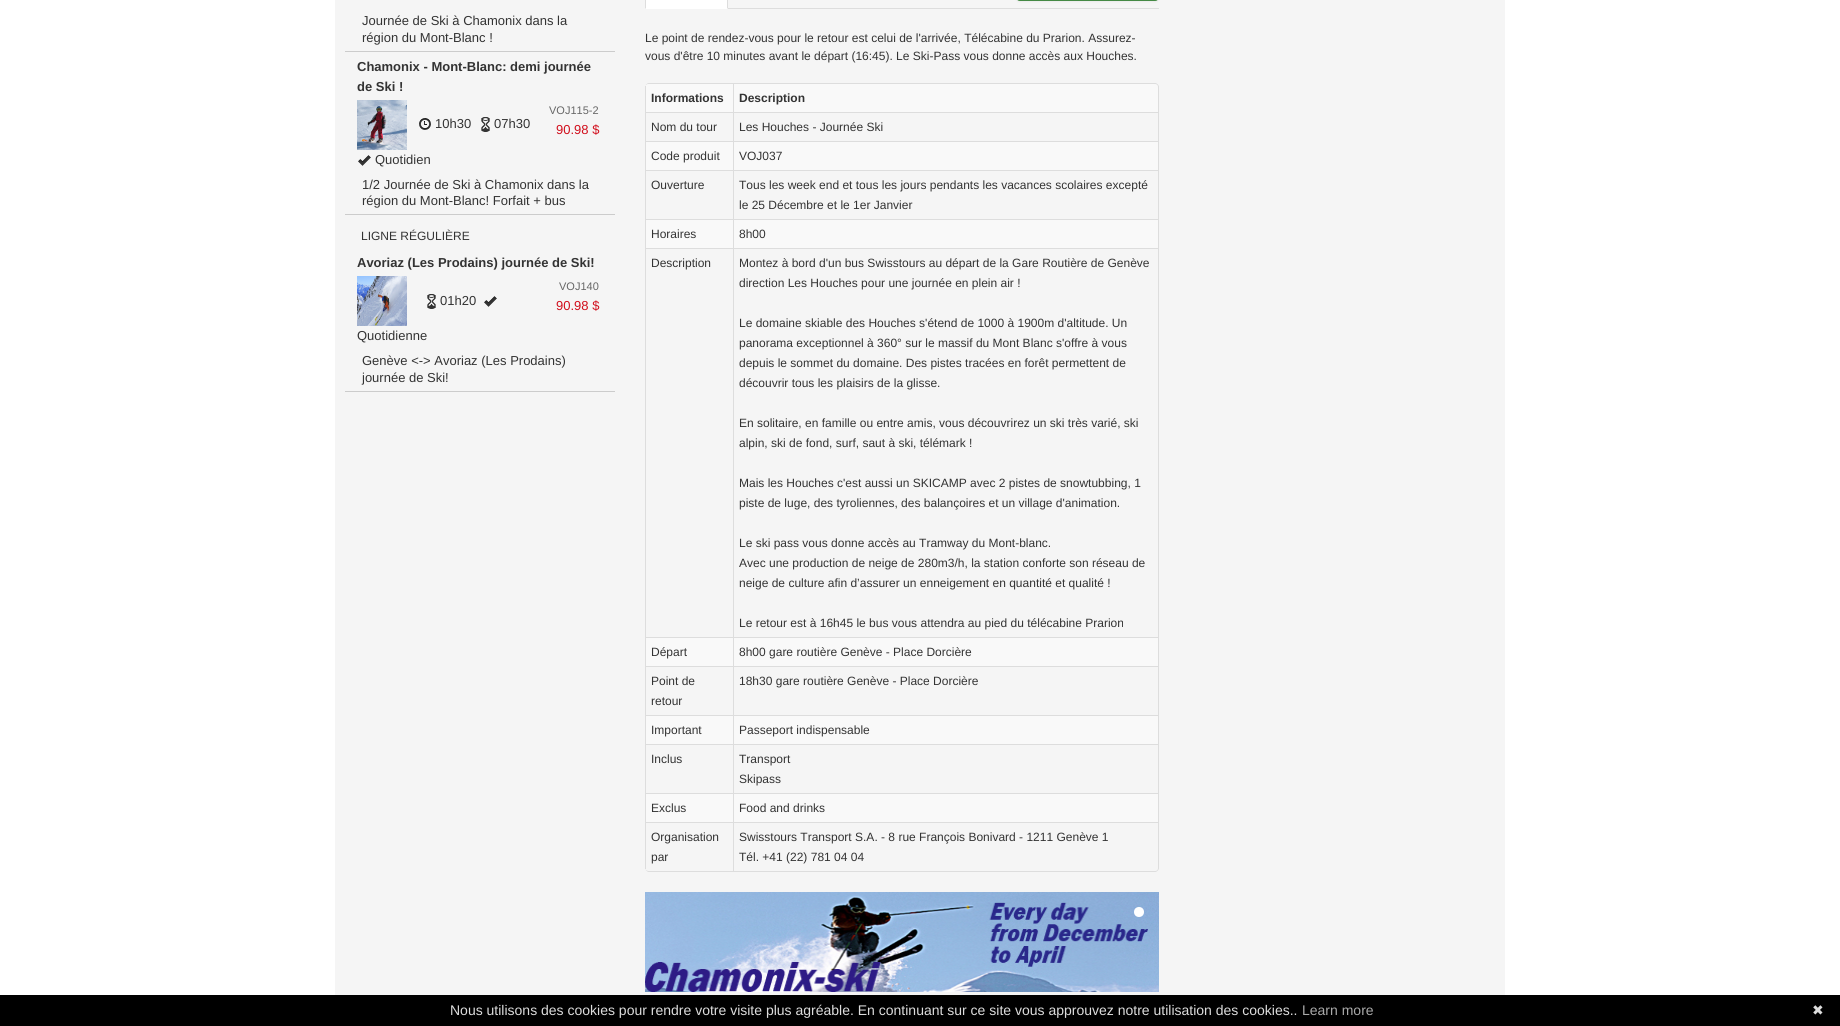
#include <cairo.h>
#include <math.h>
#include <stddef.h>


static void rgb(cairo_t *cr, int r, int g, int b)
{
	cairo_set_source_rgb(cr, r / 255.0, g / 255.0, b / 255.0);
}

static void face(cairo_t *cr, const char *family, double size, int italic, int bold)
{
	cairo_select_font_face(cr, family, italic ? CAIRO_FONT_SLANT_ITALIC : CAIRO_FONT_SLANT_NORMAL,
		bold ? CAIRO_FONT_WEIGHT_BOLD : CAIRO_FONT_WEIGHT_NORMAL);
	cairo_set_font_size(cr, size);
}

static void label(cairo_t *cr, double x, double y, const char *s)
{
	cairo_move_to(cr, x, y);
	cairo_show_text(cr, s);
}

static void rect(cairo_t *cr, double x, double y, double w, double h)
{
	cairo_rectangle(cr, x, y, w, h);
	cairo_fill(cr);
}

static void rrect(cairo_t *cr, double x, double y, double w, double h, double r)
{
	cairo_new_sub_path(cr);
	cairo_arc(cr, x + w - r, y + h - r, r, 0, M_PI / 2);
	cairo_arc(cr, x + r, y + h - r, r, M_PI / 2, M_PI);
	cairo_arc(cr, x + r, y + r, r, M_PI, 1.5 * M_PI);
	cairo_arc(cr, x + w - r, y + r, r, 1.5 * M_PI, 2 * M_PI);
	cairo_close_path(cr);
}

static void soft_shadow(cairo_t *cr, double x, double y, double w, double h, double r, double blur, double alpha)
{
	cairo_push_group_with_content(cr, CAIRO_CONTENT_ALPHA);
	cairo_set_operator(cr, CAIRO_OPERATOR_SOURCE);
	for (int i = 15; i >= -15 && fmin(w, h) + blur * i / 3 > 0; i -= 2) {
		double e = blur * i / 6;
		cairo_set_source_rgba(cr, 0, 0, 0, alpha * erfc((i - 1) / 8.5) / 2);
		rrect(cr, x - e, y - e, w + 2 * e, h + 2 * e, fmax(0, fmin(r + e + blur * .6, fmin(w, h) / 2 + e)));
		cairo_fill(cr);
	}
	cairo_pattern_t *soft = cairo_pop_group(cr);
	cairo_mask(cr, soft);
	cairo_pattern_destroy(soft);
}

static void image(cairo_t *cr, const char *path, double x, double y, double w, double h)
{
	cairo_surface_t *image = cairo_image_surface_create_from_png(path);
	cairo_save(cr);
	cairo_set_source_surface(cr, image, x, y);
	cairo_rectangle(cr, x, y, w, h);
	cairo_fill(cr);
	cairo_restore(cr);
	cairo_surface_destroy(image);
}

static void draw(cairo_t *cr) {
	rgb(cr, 255, 255, 255);
	cairo_paint(cr);
	rgb(cr, 245, 245, 245);
	rect(cr, 335, 0, 1170, 995);
	rgb(cr, 204, 204, 204);
	rect(cr, 345, 51, 270, 1);
	face(cr, "Liberation Sans", 13, 0, 0);
	rgb(cr, 51, 51, 51);
	label(cr, 362, 25, "Journée de Ski à Chamonix dans la");
	label(cr, 362, 42, "région du Mont-Blanc !");
	rgb(cr, 204, 204, 204);
	rect(cr, 345, 214, 270, 1);
	face(cr, "Liberation Sans", 13, 0, 1);
	rgb(cr, 51, 51, 51);
	label(cr, 357, 71, "Chamonix - Mont-Blanc: demi journée");
	label(cr, 357, 91, "de Ski !");
	image(cr, "image0.png", 357, 100, 50, 50);
	face(cr, "Liberation Sans", 11, 0, 0);
	rgb(cr, 102, 102, 102);
	label(cr, 549, 114, "VOJ115-2");
	face(cr, "Liberation Sans", 13, 0, 0);
	rgb(cr, 209, 14, 28);
	label(cr, 556, 134, "90.98 $");
	image(cr, "image1.png", 419, 118, 12, 12);
	rgb(cr, 51, 51, 51);
	label(cr, 435, 128, "10h30");
	image(cr, "image2.png", 481, 117, 9, 15);
	label(cr, 494, 128, "07h30");
	image(cr, "image3.png", 358, 155, 13, 11);
	label(cr, 375, 164, "Quotidien");
	label(cr, 362, 189, "1/2 Journée de Ski à Chamonix dans la");
	label(cr, 362, 205, "région du Mont-Blanc! Forfait + bus");
	face(cr, "Liberation Sans", 12, 0, 0);
	label(cr, 361, 240, "LIGNE RÉGULIÈRE");
	rgb(cr, 204, 204, 204);
	rect(cr, 345, 391, 270, 1);
	face(cr, "Liberation Sans", 13, 0, 1);
	rgb(cr, 51, 51, 51);
	label(cr, 357, 267, "Avoriaz (Les Prodains) journée de Ski!");
	image(cr, "image4.png", 357, 276, 50, 50);
	face(cr, "Liberation Sans", 11, 0, 0);
	rgb(cr, 102, 102, 102);
	label(cr, 559, 290, "VOJ140");
	face(cr, "Liberation Sans", 13, 0, 0);
	rgb(cr, 209, 14, 28);
	label(cr, 556, 310, "90.98 $");
	image(cr, "image2.png", 427, 294, 9, 15);
	rgb(cr, 51, 51, 51);
	label(cr, 440, 305, "01h20");
	image(cr, "image3.png", 484, 296, 13, 11);
	label(cr, 357, 340, "Quotidienne");
	label(cr, 362, 365, "Genève <-> Avoriaz (Les Prodains)");
	label(cr, 362, 382, "journée de Ski!");
	rgb(cr, 0, 0, 0);
	soft_shadow(cr, 1016, -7, 143, 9, 4, 1, 0.05);
	rgb(cr, 91, 183, 91);
	rrect(cr, 1016, -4, 143, 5, 4);
	cairo_fill(cr);
	cairo_new_path(cr);
	cairo_move_to(cr, 1157.5, -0.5);
	cairo_curve_to(cr, 1157, 0, 1156, 0.5, 1155, 0.5);
	cairo_line_to(cr, 1020, 0.5);
	cairo_curve_to(cr, 1019, 0.5, 1018, 0, 1017.5, -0.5);
	cairo_set_source_rgba(cr, 0, 0, 0, 0.25);
	cairo_set_line_width(cr, 1);
	cairo_stroke(cr);
	rgb(cr, 221, 221, 221);
	rect(cr, 728, 8, 431, 1);
	rgb(cr, 255, 255, 255);
	rect(cr, 645, 0, 83, 9);
	rgb(cr, 221, 221, 221);
	cairo_new_path(cr);
	cairo_move_to(cr, 728, 9);
	cairo_line_to(cr, 728, -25);
	cairo_curve_to(cr, 728, -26, 727.5, -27, 727, -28);
	cairo_line_to(cr, 726, -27);
	cairo_curve_to(cr, 727, -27, 727, -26, 727, -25);
	cairo_line_to(cr, 727, 8);
	cairo_close_path(cr);
	cairo_fill(cr);
	cairo_new_path(cr);
	cairo_move_to(cr, 645, 9);
	cairo_line_to(cr, 646, 8);
	cairo_line_to(cr, 646, -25);
	cairo_curve_to(cr, 646, -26, 646, -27, 647, -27);
	cairo_line_to(cr, 646, -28);
	cairo_curve_to(cr, 645.5, -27, 645, -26, 645, -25);
	cairo_close_path(cr);
	cairo_fill(cr);
	face(cr, "Liberation Sans", 12, 0, 0);
	rgb(cr, 51, 51, 51);
	label(cr, 645, 42, "Le point de rendez-vous pour le retour est celui de l'arrivée, Télécabine du Prarion. Assurez-");
	label(cr, 645, 60, "vous d'être 10 minutes avant le départ (16:45). Le Ski-Pass vous donne accès aux Houches.");
	rgb(cr, 221, 221, 221);
	cairo_set_fill_rule(cr, CAIRO_FILL_RULE_EVEN_ODD);
	cairo_new_path(cr);
	cairo_move_to(cr, 649, 83);
	cairo_line_to(cr, 1155, 83);
	cairo_curve_to(cr, 1157, 83, 1159, 85, 1159, 87);
	cairo_line_to(cr, 1159, 868);
	cairo_curve_to(cr, 1159, 870, 1157, 872, 1155, 872);
	cairo_line_to(cr, 649, 872);
	cairo_curve_to(cr, 647, 872, 645, 870, 645, 868);
	cairo_line_to(cr, 645, 87);
	cairo_curve_to(cr, 645, 85, 647, 83, 649, 83);
	cairo_close_path(cr);
	cairo_move_to(cr, 649, 84);
	cairo_line_to(cr, 1155, 84);
	cairo_curve_to(cr, 1157, 84, 1158, 85, 1158, 87);
	cairo_line_to(cr, 1158, 868);
	cairo_curve_to(cr, 1158, 870, 1157, 871, 1155, 871);
	cairo_line_to(cr, 649, 871);
	cairo_curve_to(cr, 647, 871, 645, 870, 645, 868);
	cairo_line_to(cr, 645, 87);
	cairo_curve_to(cr, 645, 85, 647, 84, 649, 84);
	cairo_close_path(cr);
	cairo_fill(cr);
	rgb(cr, 249, 249, 249);
	cairo_new_path(cr);
	cairo_move_to(cr, 649, 84);
	cairo_line_to(cr, 733, 84);
	cairo_line_to(cr, 733, 112);
	cairo_line_to(cr, 645, 112);
	cairo_line_to(cr, 645, 88);
	cairo_curve_to(cr, 645, 86, 647, 84, 649, 84);
	cairo_close_path(cr);
	cairo_fill(cr);
	rgb(cr, 221, 221, 221);
	rect(cr, 645, 86, 1, 26);
	face(cr, "Liberation Sans", 12, 0, 1);
	rgb(cr, 51, 51, 51);
	label(cr, 651, 102, "Informations");
	rgb(cr, 249, 249, 249);
	cairo_new_path(cr);
	cairo_move_to(cr, 733, 84);
	cairo_line_to(cr, 1154, 84);
	cairo_curve_to(cr, 1156, 84, 1158, 86, 1158, 88);
	cairo_line_to(cr, 1158, 112);
	cairo_line_to(cr, 733, 112);
	cairo_close_path(cr);
	cairo_fill(cr);
	rgb(cr, 221, 221, 221);
	rect(cr, 733, 84, 1, 28);
	rgb(cr, 51, 51, 51);
	label(cr, 739, 102, "Description");
	rgb(cr, 221, 221, 221);
	rect(cr, 645, 112, 513, 1);
	rect(cr, 645, 112, 1, 29);
	face(cr, "Liberation Sans", 12, 0, 0);
	rgb(cr, 51, 51, 51);
	label(cr, 651, 131, "Nom du tour");
	rgb(cr, 221, 221, 221);
	rect(cr, 733, 112, 1, 29);
	rgb(cr, 51, 51, 51);
	label(cr, 739, 131, "Les Houches - Journée Ski");
	rgb(cr, 249, 249, 249);
	rect(cr, 646, 142, 87, 28);
	rgb(cr, 221, 221, 221);
	rect(cr, 645, 141, 513, 1);
	rect(cr, 645, 141, 1, 29);
	rgb(cr, 51, 51, 51);
	label(cr, 651, 160, "Code produit");
	rgb(cr, 249, 249, 249);
	rect(cr, 734, 142, 424, 28);
	rgb(cr, 221, 221, 221);
	rect(cr, 733, 141, 1, 29);
	rgb(cr, 51, 51, 51);
	label(cr, 739, 160, "VOJ037");
	rgb(cr, 221, 221, 221);
	rect(cr, 645, 170, 513, 1);
	rect(cr, 645, 170, 1, 49);
	rgb(cr, 51, 51, 51);
	label(cr, 651, 189, "Ouverture");
	rgb(cr, 221, 221, 221);
	rect(cr, 733, 170, 1, 49);
	rgb(cr, 51, 51, 51);
	label(cr, 739, 189, "Tous les week end et tous les jours pendants les vacances scolaires excepté");
	label(cr, 739, 209, "le 25 Décembre et le 1er Janvier");
	rgb(cr, 249, 249, 249);
	rect(cr, 646, 220, 87, 28);
	rgb(cr, 221, 221, 221);
	rect(cr, 645, 219, 513, 1);
	rect(cr, 645, 219, 1, 29);
	rgb(cr, 51, 51, 51);
	label(cr, 651, 238, "Horaires");
	rgb(cr, 249, 249, 249);
	rect(cr, 734, 220, 424, 28);
	rgb(cr, 221, 221, 221);
	rect(cr, 733, 219, 1, 29);
	rgb(cr, 51, 51, 51);
	label(cr, 739, 238, "8h00");
	rgb(cr, 221, 221, 221);
	rect(cr, 645, 248, 513, 1);
	rect(cr, 645, 248, 1, 389);
	rgb(cr, 51, 51, 51);
	label(cr, 651, 267, "Description");
	rgb(cr, 221, 221, 221);
	rect(cr, 733, 248, 1, 389);
	rgb(cr, 51, 51, 51);
	label(cr, 739, 267, "Montez à bord d'un bus Swisstours au départ de la Gare Routière de Genève");
	label(cr, 739, 287, "direction Les Houches pour une journée en plein air !");
	label(cr, 739, 327, "Le domaine skiable des Houches s'étend de 1000 à 1900m d'altitude. Un");
	label(cr, 739, 347, "panorama exceptionnel à 360° sur le massif du Mont Blanc s'offre à vous");
	label(cr, 739, 367, "depuis le sommet du domaine. Des pistes tracées en forêt permettent de");
	label(cr, 739, 387, "découvrir tous les plaisirs de la glisse.");
	label(cr, 739, 427, "En solitaire, en famille ou entre amis, vous découvrirez un ski très varié, ski");
	label(cr, 739, 447, "alpin, ski de fond, surf, saut à ski, télémark !");
	label(cr, 739, 487, "Mais les Houches c'est aussi un SKICAMP avec 2 pistes de snowtubbing, 1");
	label(cr, 739, 507, "piste de luge, des tyroliennes, des balançoires et un village d'animation.");
	label(cr, 739, 547, "Le ski pass vous donne accès au Tramway du Mont-blanc.");
	label(cr, 739, 567, "Avec une production de neige de 280m3/h, la station conforte son réseau de");
	label(cr, 739, 587, "neige de culture afin d’assurer un enneigement en quantité et qualité !");
	label(cr, 739, 627, "Le retour est à 16h45 le bus vous attendra au pied du télécabine Prarion");
	rgb(cr, 249, 249, 249);
	rect(cr, 646, 638, 87, 28);
	rgb(cr, 221, 221, 221);
	rect(cr, 645, 637, 513, 1);
	rect(cr, 645, 637, 1, 29);
	rgb(cr, 51, 51, 51);
	label(cr, 651, 656, "Départ");
	rgb(cr, 249, 249, 249);
	rect(cr, 734, 638, 424, 28);
	rgb(cr, 221, 221, 221);
	rect(cr, 733, 637, 1, 29);
	rgb(cr, 51, 51, 51);
	label(cr, 739, 656, "8h00 gare routière Genève - Place Dorcière");
	rgb(cr, 221, 221, 221);
	rect(cr, 645, 666, 513, 1);
	rect(cr, 645, 666, 1, 49);
	rgb(cr, 51, 51, 51);
	label(cr, 651, 685, "Point de");
	label(cr, 651, 705, "retour");
	rgb(cr, 221, 221, 221);
	rect(cr, 733, 666, 1, 49);
	rgb(cr, 51, 51, 51);
	label(cr, 739, 685, "18h30 gare routière Genève - Place Dorcière");
	rgb(cr, 249, 249, 249);
	rect(cr, 646, 716, 87, 28);
	rgb(cr, 221, 221, 221);
	rect(cr, 645, 715, 513, 1);
	rect(cr, 645, 715, 1, 29);
	rgb(cr, 51, 51, 51);
	label(cr, 651, 734, "Important");
	rgb(cr, 249, 249, 249);
	rect(cr, 734, 716, 424, 28);
	rgb(cr, 221, 221, 221);
	rect(cr, 733, 715, 1, 29);
	rgb(cr, 51, 51, 51);
	label(cr, 739, 734, "Passeport indispensable");
	rgb(cr, 221, 221, 221);
	rect(cr, 645, 744, 513, 1);
	rect(cr, 645, 744, 1, 49);
	rgb(cr, 51, 51, 51);
	label(cr, 651, 763, "Inclus");
	rgb(cr, 221, 221, 221);
	rect(cr, 733, 744, 1, 49);
	rgb(cr, 51, 51, 51);
	label(cr, 739, 763, "Transport");
	label(cr, 739, 783, "Skipass");
	rgb(cr, 249, 249, 249);
	rect(cr, 646, 794, 87, 28);
	rgb(cr, 221, 221, 221);
	rect(cr, 645, 793, 513, 1);
	rect(cr, 645, 793, 1, 29);
	rgb(cr, 51, 51, 51);
	label(cr, 651, 812, "Exclus");
	rgb(cr, 249, 249, 249);
	rect(cr, 734, 794, 424, 28);
	rgb(cr, 221, 221, 221);
	rect(cr, 733, 793, 1, 29);
	rgb(cr, 51, 51, 51);
	label(cr, 739, 812, "Food and drinks");
	rgb(cr, 221, 221, 221);
	rect(cr, 645, 822, 513, 1);
	rect(cr, 645, 822, 1, 47);
	rgb(cr, 51, 51, 51);
	label(cr, 651, 841, "Organisation");
	label(cr, 651, 861, "par");
	rgb(cr, 221, 221, 221);
	rect(cr, 733, 822, 1, 49);
	rgb(cr, 51, 51, 51);
	label(cr, 739, 841, "Swisstours Transport S.A. - 8 rue François Bonivard - 1211 Genève 1");
	label(cr, 739, 861, "Tél. +41 (22) 781 04 04");
	image(cr, "image5.png", 645, 892, 514, 100);
	rgb(cr, 255, 255, 255);
	cairo_arc(cr, 1139, 912, 5, 0, 2 * M_PI);
	cairo_fill(cr);
	rgb(cr, 0, 0, 0);
	rect(cr, 0, 995, 1840, 31);
	face(cr, "Liberation Sans", 14, 0, 0);
	rgb(cr, 221, 221, 221);
	label(cr, 450, 1015, "Nous utilisons des cookies pour rendre votre visite plus agréable. En continuant sur ce site vous approuvez notre utilisation des cookies..");
	rgb(cr, 170, 170, 170);
	label(cr, 1302, 1015, "Learn more");
	face(cr, "DejaVu Sans", 14, 0, 0);
	rgb(cr, 221, 221, 221);
	label(cr, 1812, 1015, "✖");
}

int main(void) {
	cairo_surface_t *surface = cairo_image_surface_create(CAIRO_FORMAT_RGB24, 1840, 1026);
	cairo_t *cr = cairo_create(surface);
	cairo_font_options_t *options = cairo_font_options_create();
	cairo_font_options_set_hint_metrics(options, CAIRO_HINT_METRICS_OFF);
	cairo_font_options_set_hint_style(options, CAIRO_HINT_STYLE_NONE);
	cairo_set_font_options(cr, options);
	cairo_set_miter_limit(cr, 4);
	draw(cr);
	cairo_surface_write_to_png(surface, "render.png");
	cairo_font_options_destroy(options);
	cairo_destroy(cr);
	cairo_surface_destroy(surface);
	return 0;
}
